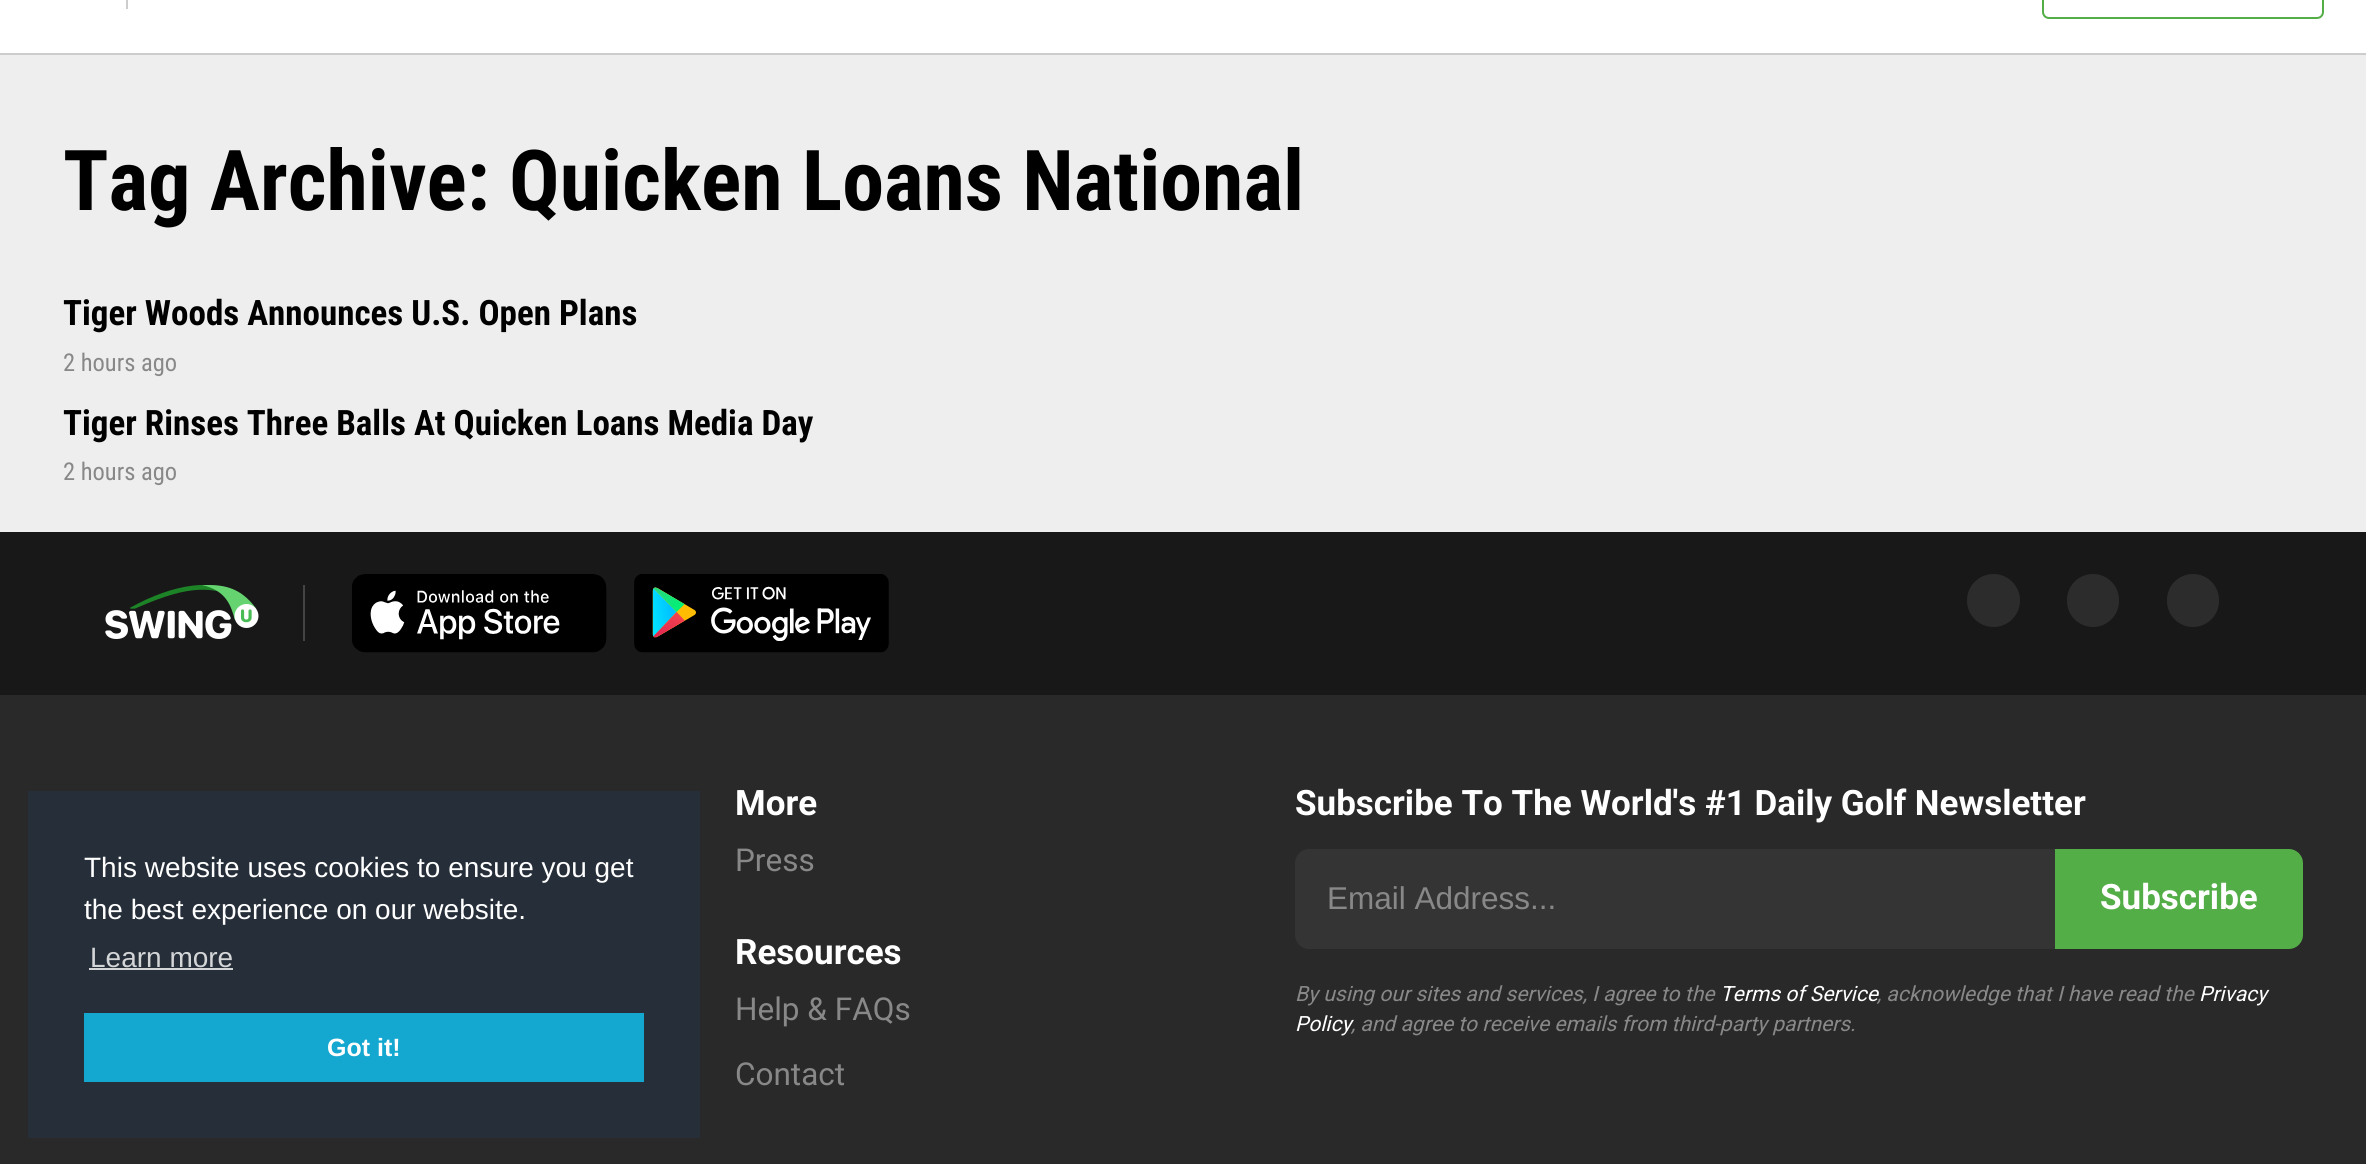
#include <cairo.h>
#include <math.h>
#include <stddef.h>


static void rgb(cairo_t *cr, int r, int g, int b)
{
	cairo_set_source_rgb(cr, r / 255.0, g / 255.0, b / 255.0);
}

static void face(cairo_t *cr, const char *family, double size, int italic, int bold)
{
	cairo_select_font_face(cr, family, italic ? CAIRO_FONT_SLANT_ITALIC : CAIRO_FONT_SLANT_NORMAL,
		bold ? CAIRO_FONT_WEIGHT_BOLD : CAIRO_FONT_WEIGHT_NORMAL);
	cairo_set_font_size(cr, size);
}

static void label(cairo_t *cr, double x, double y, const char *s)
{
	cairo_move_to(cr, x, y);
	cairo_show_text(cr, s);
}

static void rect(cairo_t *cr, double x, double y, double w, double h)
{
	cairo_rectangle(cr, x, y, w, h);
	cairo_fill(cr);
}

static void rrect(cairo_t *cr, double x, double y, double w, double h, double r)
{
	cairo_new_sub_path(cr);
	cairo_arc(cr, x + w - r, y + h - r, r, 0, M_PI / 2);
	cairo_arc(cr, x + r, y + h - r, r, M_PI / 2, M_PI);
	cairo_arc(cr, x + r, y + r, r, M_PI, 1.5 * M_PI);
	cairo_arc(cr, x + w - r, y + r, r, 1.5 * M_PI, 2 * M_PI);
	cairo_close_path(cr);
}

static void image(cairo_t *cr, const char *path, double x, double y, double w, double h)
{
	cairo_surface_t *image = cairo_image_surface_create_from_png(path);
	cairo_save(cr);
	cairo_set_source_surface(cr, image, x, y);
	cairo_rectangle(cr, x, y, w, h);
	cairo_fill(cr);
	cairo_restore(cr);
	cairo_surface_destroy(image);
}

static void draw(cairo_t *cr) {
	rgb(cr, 41, 41, 41);
	cairo_paint(cr);
	rgb(cr, 255, 255, 255);
	rect(cr, 0, 0, 2366, 53);
	rgb(cr, 204, 204, 204);
	rect(cr, 0, 53, 2366, 2);
	rect(cr, 126, 0, 2, 9);
	rrect(cr, 2043, -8, 280, 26, 6);
	rgb(cr, 84, 174, 71);
	cairo_stroke(cr);
	rgb(cr, 238, 238, 238);
	rect(cr, 0, 55, 2366, 477);
	face(cr, "Roboto Condensed", 84, 0, 1);
	rgb(cr, 0, 0, 0);
	label(cr, 63, 210, "Tag Archive: Quicken Loans National");
	face(cr, "Roboto Condensed", 35, 0, 1);
	label(cr, 63, 325, "Tiger Woods Announces U.S. Open Plans");
	face(cr, "Roboto Condensed", 24.5, 0, 0);
	rgb(cr, 136, 136, 136);
	label(cr, 63, 371, "2 hours ago");
	face(cr, "Roboto Condensed", 35, 0, 1);
	rgb(cr, 0, 0, 0);
	label(cr, 63, 435, "Tiger Rinses Three Balls At Quicken Loans Media Day");
	face(cr, "Roboto Condensed", 24.5, 0, 0);
	rgb(cr, 136, 136, 136);
	label(cr, 63, 480, "2 hours ago");
	rgb(cr, 24, 24, 24);
	rect(cr, 0, 532, 2366, 163);
	rgb(cr, 68, 68, 68);
	rect(cr, 303, 585, 2, 56);
	image(cr, "image0.png", 105, 585, 154, 54);
	image(cr, "image1.png", 352, 574, 255, 79);
	image(cr, "image2.png", 634, 574, 255, 79);
	rgb(cr, 44, 44, 44);
	cairo_arc(cr, 1993.5, 600.5, 26.5, 0, 2 * M_PI);
	cairo_fill(cr);
	rrect(cr, 2067, 574, 52, 53, 26);
	cairo_fill(cr);
	rrect(cr, 2167, 574, 52, 53, 26);
	cairo_fill(cr);
	rgb(cr, 37, 46, 57);
	rect(cr, 28, 791, 672, 347);
	face(cr, "Liberation Sans", 28, 0, 0);
	rgb(cr, 255, 255, 255);
	label(cr, 84, 877, "This website uses cookies to ensure you get");
	label(cr, 84, 919, "the best experience on our website.");
	rgb(cr, 211, 213, 215);
	label(cr, 90, 967, "Learn more");
	rect(cr, 89, 968, 144, 2);
	rgb(cr, 20, 167, 208);
	rect(cr, 84, 1013, 560, 69);
	face(cr, "Liberation Sans", 25, 0, 1);
	rgb(cr, 255, 255, 255);
	label(cr, 327, 1056, "Got it!");
	face(cr, "Roboto", 35, 0, 1);
	label(cr, 735, 815, "More");
	face(cr, "Roboto", 31.5, 0, 0);
	rgb(cr, 136, 136, 136);
	label(cr, 735, 871, "Press");
	face(cr, "Roboto", 35, 0, 1);
	rgb(cr, 255, 255, 255);
	label(cr, 735, 964, "Resources");
	face(cr, "Roboto", 31.5, 0, 0);
	rgb(cr, 136, 136, 136);
	label(cr, 735, 1020, "Help & FAQs");
	label(cr, 735, 1085, "Contact");
	face(cr, "Roboto", 35, 0, 1);
	rgb(cr, 255, 255, 255);
	label(cr, 1295, 815, "Subscribe To The World's #1 Daily Golf Newsletter");
	rgb(cr, 52, 52, 52);
	cairo_new_path(cr);
	cairo_move_to(cr, 1309, 849);
	cairo_line_to(cr, 2055, 849);
	cairo_line_to(cr, 2055, 949);
	cairo_line_to(cr, 1309, 949);
	cairo_curve_to(cr, 1301.5, 949, 1295, 942.5, 1295, 935);
	cairo_line_to(cr, 1295, 863);
	cairo_curve_to(cr, 1295, 855.5, 1301.5, 849, 1309, 849);
	cairo_close_path(cr);
	cairo_fill(cr);
	face(cr, "Liberation Sans", 31.5, 0, 0);
	rgb(cr, 136, 136, 136);
	label(cr, 1327, 909, "Email Address...");
	rgb(cr, 84, 174, 71);
	cairo_new_path(cr);
	cairo_move_to(cr, 2056, 850);
	cairo_line_to(cr, 2289, 850);
	cairo_curve_to(cr, 2296, 850, 2302, 856, 2302, 863);
	cairo_line_to(cr, 2302, 935);
	cairo_curve_to(cr, 2302, 942, 2296, 948, 2289, 948);
	cairo_line_to(cr, 2056, 948);
	cairo_close_path(cr);
	cairo_fill_preserve(cr);
	cairo_stroke(cr);
	face(cr, "Roboto", 35, 0, 1);
	rgb(cr, 255, 255, 255);
	label(cr, 2100, 909, "Subscribe");
	face(cr, "Roboto", 21, 1, 0);
	rgb(cr, 136, 136, 136);
	label(cr, 1295, 1001, "By using our sites and services, I agree to the");
	rgb(cr, 255, 255, 255);
	label(cr, 1720, 1001, "Terms of Service");
	rgb(cr, 136, 136, 136);
	label(cr, 1877, 1001, ", acknowledge that I have read the");
	rgb(cr, 255, 255, 255);
	label(cr, 2199, 1001, "Privacy");
	label(cr, 1295, 1031, "Policy");
	rgb(cr, 136, 136, 136);
	label(cr, 1351, 1031, ", and agree to receive emails from third-party partners.");
}

int main(void) {
	cairo_surface_t *surface = cairo_image_surface_create(CAIRO_FORMAT_RGB24, 2366, 1164);
	cairo_t *cr = cairo_create(surface);
	cairo_font_options_t *options = cairo_font_options_create();
	cairo_font_options_set_hint_metrics(options, CAIRO_HINT_METRICS_OFF);
	cairo_font_options_set_hint_style(options, CAIRO_HINT_STYLE_NONE);
	cairo_set_font_options(cr, options);
	cairo_set_miter_limit(cr, 4);
	draw(cr);
	cairo_surface_write_to_png(surface, "render.png");
	cairo_font_options_destroy(options);
	cairo_destroy(cr);
	cairo_surface_destroy(surface);
	return 0;
}
